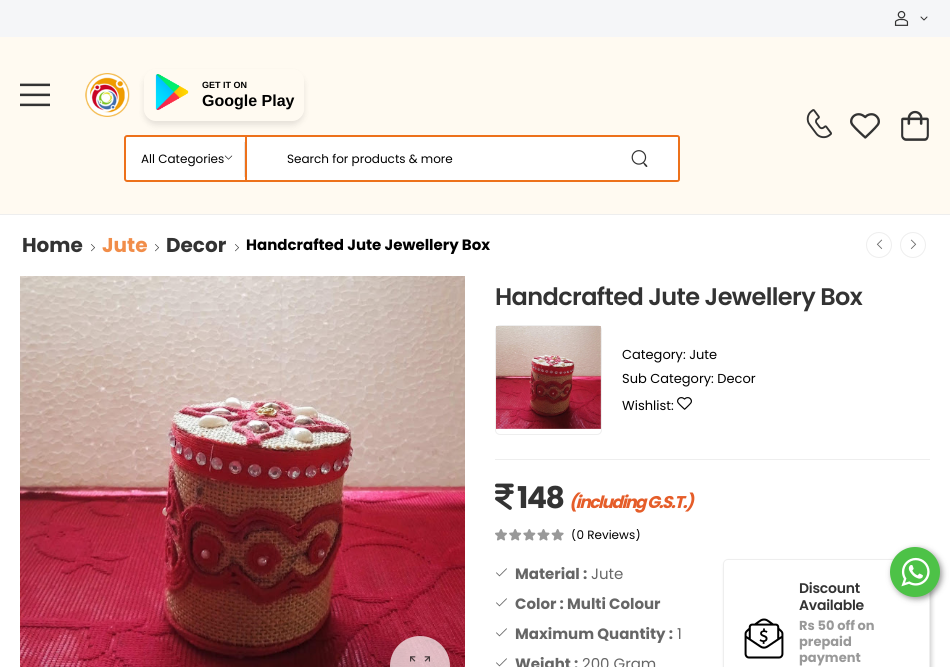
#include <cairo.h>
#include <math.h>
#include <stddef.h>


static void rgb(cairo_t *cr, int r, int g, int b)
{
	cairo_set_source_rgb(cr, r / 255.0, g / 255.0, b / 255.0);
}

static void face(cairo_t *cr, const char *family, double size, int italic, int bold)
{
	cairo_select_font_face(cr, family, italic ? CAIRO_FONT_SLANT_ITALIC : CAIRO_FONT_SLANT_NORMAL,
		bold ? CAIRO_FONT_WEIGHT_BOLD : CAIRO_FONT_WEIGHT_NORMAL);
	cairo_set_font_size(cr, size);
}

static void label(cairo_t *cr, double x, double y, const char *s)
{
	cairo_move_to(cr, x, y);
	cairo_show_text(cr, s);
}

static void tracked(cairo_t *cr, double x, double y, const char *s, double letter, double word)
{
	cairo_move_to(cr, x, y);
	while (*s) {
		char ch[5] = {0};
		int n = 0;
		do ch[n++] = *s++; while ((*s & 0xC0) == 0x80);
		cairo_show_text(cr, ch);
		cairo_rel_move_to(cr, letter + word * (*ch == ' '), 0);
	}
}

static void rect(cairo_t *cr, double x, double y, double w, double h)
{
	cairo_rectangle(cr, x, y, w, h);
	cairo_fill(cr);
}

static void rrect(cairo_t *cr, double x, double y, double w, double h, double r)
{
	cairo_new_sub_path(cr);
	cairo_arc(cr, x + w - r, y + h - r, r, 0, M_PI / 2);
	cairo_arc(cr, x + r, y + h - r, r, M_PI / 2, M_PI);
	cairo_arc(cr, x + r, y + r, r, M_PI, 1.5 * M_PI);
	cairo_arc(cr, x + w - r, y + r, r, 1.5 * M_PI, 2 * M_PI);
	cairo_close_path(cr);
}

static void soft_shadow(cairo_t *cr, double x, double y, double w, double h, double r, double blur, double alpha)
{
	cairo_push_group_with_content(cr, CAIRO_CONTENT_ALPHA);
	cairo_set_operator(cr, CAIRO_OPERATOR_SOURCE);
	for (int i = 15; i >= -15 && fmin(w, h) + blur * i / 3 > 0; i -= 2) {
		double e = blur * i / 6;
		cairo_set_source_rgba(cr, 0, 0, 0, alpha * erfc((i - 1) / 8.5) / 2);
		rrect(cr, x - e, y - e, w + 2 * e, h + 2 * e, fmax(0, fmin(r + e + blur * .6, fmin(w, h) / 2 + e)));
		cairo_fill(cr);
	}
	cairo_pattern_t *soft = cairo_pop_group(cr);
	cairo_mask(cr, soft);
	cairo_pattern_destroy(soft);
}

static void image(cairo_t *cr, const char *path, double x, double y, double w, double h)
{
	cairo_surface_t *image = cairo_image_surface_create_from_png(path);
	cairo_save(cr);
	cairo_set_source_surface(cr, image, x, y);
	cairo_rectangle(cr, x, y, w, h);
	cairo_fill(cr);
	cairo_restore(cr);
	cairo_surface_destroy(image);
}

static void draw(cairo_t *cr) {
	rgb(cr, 255, 255, 255);
	cairo_paint(cr);
	rgb(cr, 245, 246, 248);
	rect(cr, 0, 0, 950, 37);
	image(cr, "image0.png", 894, 10, 15, 16);
	image(cr, "image1.png", 920, 16, 8, 5);
	rgb(cr, 255, 250, 241);
	rect(cr, 0, 37, 950, 177);
	rgb(cr, 238, 238, 238);
	rect(cr, 0, 214, 950, 1);
	image(cr, "image2.png", 20, 83, 30, 24);
	image(cr, "image3.png", 85, 73, 45, 44);
	cairo_save(cr);
	cairo_set_fill_rule(cr, CAIRO_FILL_RULE_EVEN_ODD);
	cairo_new_path(cr);
	cairo_move_to(cr, 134, 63);
	cairo_line_to(cr, 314, 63);
	cairo_line_to(cr, 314, 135);
	cairo_line_to(cr, 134, 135);
	cairo_close_path(cr);
	cairo_move_to(cr, 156, 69);
	cairo_line_to(cr, 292, 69);
	cairo_curve_to(cr, 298.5, 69, 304, 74.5, 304, 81);
	cairo_line_to(cr, 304, 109);
	cairo_curve_to(cr, 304, 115.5, 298.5, 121, 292, 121);
	cairo_line_to(cr, 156, 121);
	cairo_curve_to(cr, 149.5, 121, 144, 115.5, 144, 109);
	cairo_line_to(cr, 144, 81);
	cairo_curve_to(cr, 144, 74.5, 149.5, 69, 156, 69);
	cairo_close_path(cr);
	cairo_clip(cr);
	rgb(cr, 0, 0, 0);
	soft_shadow(cr, 144, 73, 160, 52, 12, 3, 0.1);
	cairo_restore(cr);
	image(cr, "image4.png", 155, 74, 34, 36);
	face(cr, "Liberation Sans", 9, 0, 1);
	rgb(cr, 0, 0, 0);
	label(cr, 202, 88, "GET IT ON");
	face(cr, "Liberation Sans", 16, 0, 1);
	label(cr, 202, 106, "Google Play");
	rgb(cr, 255, 255, 255);
	rect(cr, 124, 135, 556, 47);
	cairo_new_path(cr);
	cairo_move_to(cr, 127, 136);
	cairo_line_to(cr, 246, 136);
	cairo_line_to(cr, 246, 181);
	cairo_line_to(cr, 127, 181);
	cairo_curve_to(cr, 126, 181, 125, 180, 125, 179);
	cairo_line_to(cr, 125, 138);
	cairo_curve_to(cr, 125, 137, 126, 136, 127, 136);
	cairo_close_path(cr);
	rgb(cr, 237, 113, 27);
	cairo_stroke(cr);
	face(cr, "Poppins", 12, 0, 0);
	rgb(cr, 0, 0, 0);
	label(cr, 141, 163, "All Categories");
	image(cr, "image5.png", 224, 155, 9, 5);
	rgb(cr, 229, 229, 229);
	rect(cr, 244, 142, 1, 35);
	rgb(cr, 237, 113, 27);
	rect(cr, 247, 135, 240, 2);
	rect(cr, 247, 180, 240, 2);
	rgb(cr, 0, 0, 0);
	label(cr, 287, 163, "Search for products & more");
	rgb(cr, 237, 113, 27);
	cairo_set_fill_rule(cr, CAIRO_FILL_RULE_EVEN_ODD);
	cairo_new_path(cr);
	cairo_move_to(cr, 487, 135);
	cairo_line_to(cr, 677, 135);
	cairo_curve_to(cr, 679, 135, 680, 136, 680, 138);
	cairo_line_to(cr, 680, 179);
	cairo_curve_to(cr, 680, 181, 679, 182, 677, 182);
	cairo_line_to(cr, 487, 182);
	cairo_close_path(cr);
	cairo_move_to(cr, 487, 137);
	cairo_line_to(cr, 677, 137);
	cairo_curve_to(cr, 678, 137, 678, 137, 678, 138);
	cairo_line_to(cr, 678, 179);
	cairo_curve_to(cr, 678, 180, 678, 180, 677, 180);
	cairo_line_to(cr, 487, 180);
	cairo_close_path(cr);
	cairo_fill(cr);
	image(cr, "image6.png", 631, 150, 17, 17);
	image(cr, "image7.png", 806, 109, 26, 30);
	image(cr, "image8.png", 850, 113, 30, 26);
	image(cr, "image9.png", 901, 110, 28, 31);
	face(cr, "Poppins", 20, 0, 1);
	rgb(cr, 51, 51, 51);
	label(cr, 22, 252, "Home");
	image(cr, "image10.png", 91, 244, 4, 8);
	rgb(cr, 241, 141, 73);
	label(cr, 102, 252, "Jute");
	image(cr, "image10.png", 155, 244, 4, 8);
	rgb(cr, 51, 51, 51);
	label(cr, 166, 252, "Decor");
	image(cr, "image10.png", 235, 244, 4, 8);
	face(cr, "Poppins", 15, 0, 1);
	rgb(cr, 0, 0, 0);
	label(cr, 246, 250, "Handcrafted Jute Jewellery Box");
	cairo_new_path(cr);
	cairo_arc(cr, 879, 245, 12.5, 0, 2 * M_PI);
	rgb(cr, 238, 238, 238);
	cairo_set_line_width(cr, 1);
	cairo_stroke(cr);
	image(cr, "image11.png", 876, 239, 7, 10);
	cairo_arc(cr, 913, 245, 12.5, 0, 2 * M_PI);
	cairo_stroke(cr);
	image(cr, "image12.png", 910, 239, 7, 10);
	image(cr, "image13.png", 20, 276, 445, 391);
	cairo_set_source_rgba(cr, 1, 1, 1, 0.7);
	cairo_arc(cr, 420, 666, 30, 0, 2 * M_PI);
	cairo_fill(cr);
	image(cr, "image14.png", 410, 656, 20, 6);
	face(cr, "Poppins SemiBold", 24, 0, 0);
	rgb(cr, 51, 51, 51);
	tracked(cr, 495, 305, "Handcrafted Jute Jewellery Box", -0.6, 0);
	rrect(cr, 495.5, 325.5, 106, 109, 4.5);
	rgb(cr, 238, 238, 238);
	cairo_stroke(cr);
	image(cr, "image15.png", 496, 326, 105, 103);
	face(cr, "Poppins", 13, 0, 0);
	rgb(cr, 0, 0, 0);
	label(cr, 622, 359, "Category: Jute");
	label(cr, 622, 383, "Sub Category: Decor");
	label(cr, 622, 410, "Wishlist:");
	image(cr, "image16.png", 677, 397, 15, 13);
	rgb(cr, 238, 238, 238);
	rect(cr, 495, 459, 435, 1);
	image(cr, "image17.png", 495, 483, 19, 27);
	face(cr, "Poppins", 30, 0, 1);
	rgb(cr, 51, 51, 51);
	tracked(cr, 517, 508, "148", -1.5, 0);
	face(cr, "Poppins", 17, 1, 1);
	rgb(cr, 229, 93, 41);
	tracked(cr, 569, 508, "(including G.S.T.)", -1.5, 0);
	image(cr, "image18.png", 495, 529, 69, 12);
	cairo_save(cr);
	cairo_set_fill_rule(cr, CAIRO_FILL_RULE_WINDING);
	cairo_rectangle(cr, 571, 529, 69, 12);
	cairo_clip(cr);
	face(cr, "Poppins", 12, 0, 0);
	rgb(cr, 0, 0, 0);
	label(cr, 571, 539, "(0 Reviews)");
	cairo_restore(cr);
	image(cr, "image19.png", 496, 568, 11, 9);
	face(cr, "Poppins", 15, 0, 1);
	rgb(cr, 102, 102, 102);
	label(cr, 515, 579, "Material :");
	face(cr, "Poppins", 15, 0, 0);
	label(cr, 591, 579, "Jute");
	image(cr, "image19.png", 496, 598, 11, 9);
	face(cr, "Poppins", 15, 0, 1);
	label(cr, 515, 609, "Color : Multi Colour");
	image(cr, "image19.png", 496, 628, 11, 9);
	label(cr, 515, 639, "Maximum Quantity :");
	face(cr, "Poppins", 15, 0, 0);
	label(cr, 677, 639, "1");
	image(cr, "image19.png", 496, 658, 11, 9);
	face(cr, "Poppins", 15, 0, 1);
	label(cr, 515, 669, "Weight :");
	face(cr, "Poppins", 15, 0, 0);
	label(cr, 582, 669, "200 Gram");
	cairo_save(cr);
	cairo_new_path(cr);
	cairo_move_to(cr, 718, 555);
	cairo_line_to(cr, 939, 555);
	cairo_line_to(cr, 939, 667);
	cairo_line_to(cr, 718, 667);
	cairo_close_path(cr);
	cairo_move_to(cr, 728, 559);
	cairo_line_to(cr, 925, 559);
	cairo_curve_to(cr, 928, 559, 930, 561, 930, 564);
	cairo_line_to(cr, 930, 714);
	cairo_curve_to(cr, 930, 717, 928, 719, 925, 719);
	cairo_line_to(cr, 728, 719);
	cairo_curve_to(cr, 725, 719, 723, 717, 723, 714);
	cairo_line_to(cr, 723, 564);
	cairo_curve_to(cr, 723, 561, 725, 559, 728, 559);
	cairo_close_path(cr);
	cairo_clip(cr);
	rgb(cr, 33, 33, 33);
	soft_shadow(cr, 725, 562, 207, 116, 5, 2, 0.2);
	cairo_restore(cr);
	rrect(cr, 723.5, 559.5, 206, 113, 4.5);
	rgb(cr, 238, 238, 238);
	cairo_stroke(cr);
	image(cr, "image20.png", 744, 618, 40, 41);
	face(cr, "Poppins SemiBold", 14, 0, 0);
	rgb(cr, 51, 51, 51);
	tracked(cr, 799, 593, "Discount", -0.25, 0);
	tracked(cr, 799, 610, "Available", -0.25, 0);
	face(cr, "Poppins", 13, 0, 1);
	rgb(cr, 153, 153, 153);
	label(cr, 799, 630, "Rs 50 off on");
	label(cr, 799, 646, "prepaid");
	label(cr, 799, 662, "payment");
	rgb(cr, 0, 0, 0);
	soft_shadow(cr, 892, 549, 50, 50, 25, 3, 0.4);
	rgb(cr, 77, 194, 71);
	cairo_arc(cr, 915, 572, 25, 0, 2 * M_PI);
	cairo_fill(cr);
	image(cr, "image21.png", 901, 557, 29, 30);
}

int main(void) {
	cairo_surface_t *surface = cairo_image_surface_create(CAIRO_FORMAT_RGB24, 950, 667);
	cairo_t *cr = cairo_create(surface);
	cairo_font_options_t *options = cairo_font_options_create();
	cairo_font_options_set_hint_metrics(options, CAIRO_HINT_METRICS_OFF);
	cairo_font_options_set_hint_style(options, CAIRO_HINT_STYLE_NONE);
	cairo_set_font_options(cr, options);
	cairo_set_miter_limit(cr, 4);
	draw(cr);
	cairo_surface_write_to_png(surface, "render.png");
	cairo_font_options_destroy(options);
	cairo_destroy(cr);
	cairo_surface_destroy(surface);
	return 0;
}
